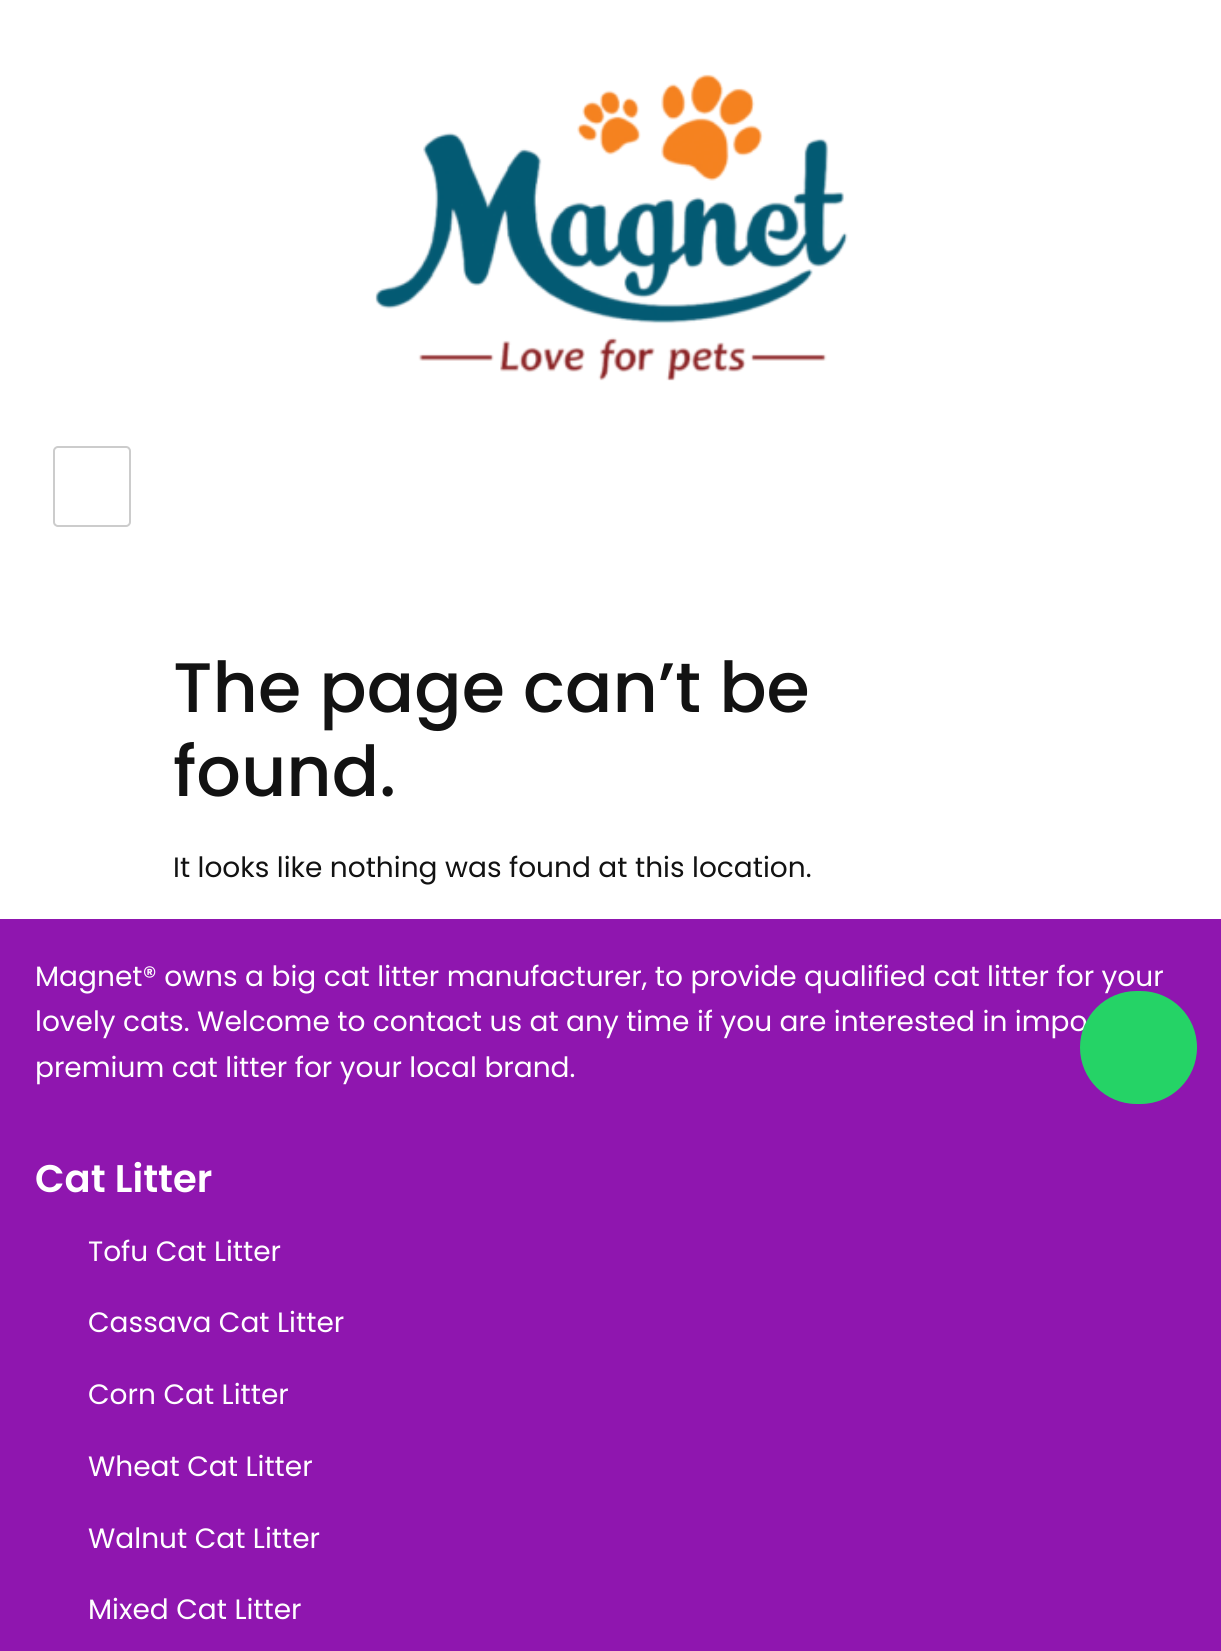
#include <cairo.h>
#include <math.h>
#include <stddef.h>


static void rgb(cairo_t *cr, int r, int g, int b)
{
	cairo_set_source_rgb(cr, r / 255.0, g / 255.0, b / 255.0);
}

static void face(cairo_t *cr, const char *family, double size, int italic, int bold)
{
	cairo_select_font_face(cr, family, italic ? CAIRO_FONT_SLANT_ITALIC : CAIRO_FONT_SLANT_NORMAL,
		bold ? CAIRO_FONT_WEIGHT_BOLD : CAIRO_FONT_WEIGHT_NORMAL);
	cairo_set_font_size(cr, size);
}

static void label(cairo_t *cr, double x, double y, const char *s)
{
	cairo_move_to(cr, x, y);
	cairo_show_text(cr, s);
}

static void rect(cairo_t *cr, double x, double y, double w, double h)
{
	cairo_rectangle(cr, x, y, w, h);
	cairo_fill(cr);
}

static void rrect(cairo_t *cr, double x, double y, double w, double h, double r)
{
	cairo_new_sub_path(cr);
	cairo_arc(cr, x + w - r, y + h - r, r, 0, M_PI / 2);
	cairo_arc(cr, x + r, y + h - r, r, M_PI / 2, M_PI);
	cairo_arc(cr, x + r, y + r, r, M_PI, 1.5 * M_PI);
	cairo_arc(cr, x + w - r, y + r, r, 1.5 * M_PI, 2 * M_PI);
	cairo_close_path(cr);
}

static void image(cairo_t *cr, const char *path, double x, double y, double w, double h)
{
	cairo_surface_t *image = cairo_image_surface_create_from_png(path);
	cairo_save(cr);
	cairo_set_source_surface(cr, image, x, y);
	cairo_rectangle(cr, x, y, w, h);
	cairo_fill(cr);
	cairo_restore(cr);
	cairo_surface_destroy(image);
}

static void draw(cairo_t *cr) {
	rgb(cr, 255, 255, 255);
	cairo_paint(cr);
	image(cr, "image0.png", 375, 74, 473, 307);
	rrect(cr, 54, 447, 76, 79, 4);
	rgb(cr, 204, 204, 204);
	cairo_stroke(cr);
	face(cr, "Poppins Medium", 70, 0, 0);
	rgb(cr, 18, 18, 18);
	label(cr, 173, 712, "The page can’t be");
	label(cr, 173, 796, "found.");
	face(cr, "Poppins", 28, 0, 0);
	label(cr, 173, 877, "It looks like nothing was found at this location.");
	rgb(cr, 143, 22, 175);
	rect(cr, 0, 919, 1221, 732);
	rgb(cr, 255, 255, 255);
	label(cr, 35, 986, "Magnet® owns a big cat litter manufacturer, to provide qualified cat litter for your");
	label(cr, 35, 1031, "lovely cats. Welcome to contact us at any time if you are interested in impo");
	label(cr, 35, 1077, "premium cat litter for your local brand.");
	face(cr, "Poppins SemiBold", 38.5, 0, 0);
	label(cr, 35, 1192, "Cat Litter");
	face(cr, "Poppins", 28, 0, 0);
	label(cr, 88, 1261, "Tofu Cat Litter");
	label(cr, 88, 1332, "Cassava Cat Litter");
	label(cr, 88, 1404, "Corn Cat Litter");
	label(cr, 88, 1476, "Wheat Cat Litter");
	label(cr, 88, 1548, "Walnut Cat Litter");
	label(cr, 88, 1619, "Mixed Cat Litter");
	rgb(cr, 37, 211, 102);
	rrect(cr, 1080, 991, 117, 113, 56.5);
	cairo_fill(cr);
}

int main(void) {
	cairo_surface_t *surface = cairo_image_surface_create(CAIRO_FORMAT_RGB24, 1221, 1651);
	cairo_t *cr = cairo_create(surface);
	cairo_font_options_t *options = cairo_font_options_create();
	cairo_font_options_set_hint_metrics(options, CAIRO_HINT_METRICS_OFF);
	cairo_font_options_set_hint_style(options, CAIRO_HINT_STYLE_NONE);
	cairo_set_font_options(cr, options);
	cairo_set_miter_limit(cr, 4);
	draw(cr);
	cairo_surface_write_to_png(surface, "render.png");
	cairo_font_options_destroy(options);
	cairo_destroy(cr);
	cairo_surface_destroy(surface);
	return 0;
}
